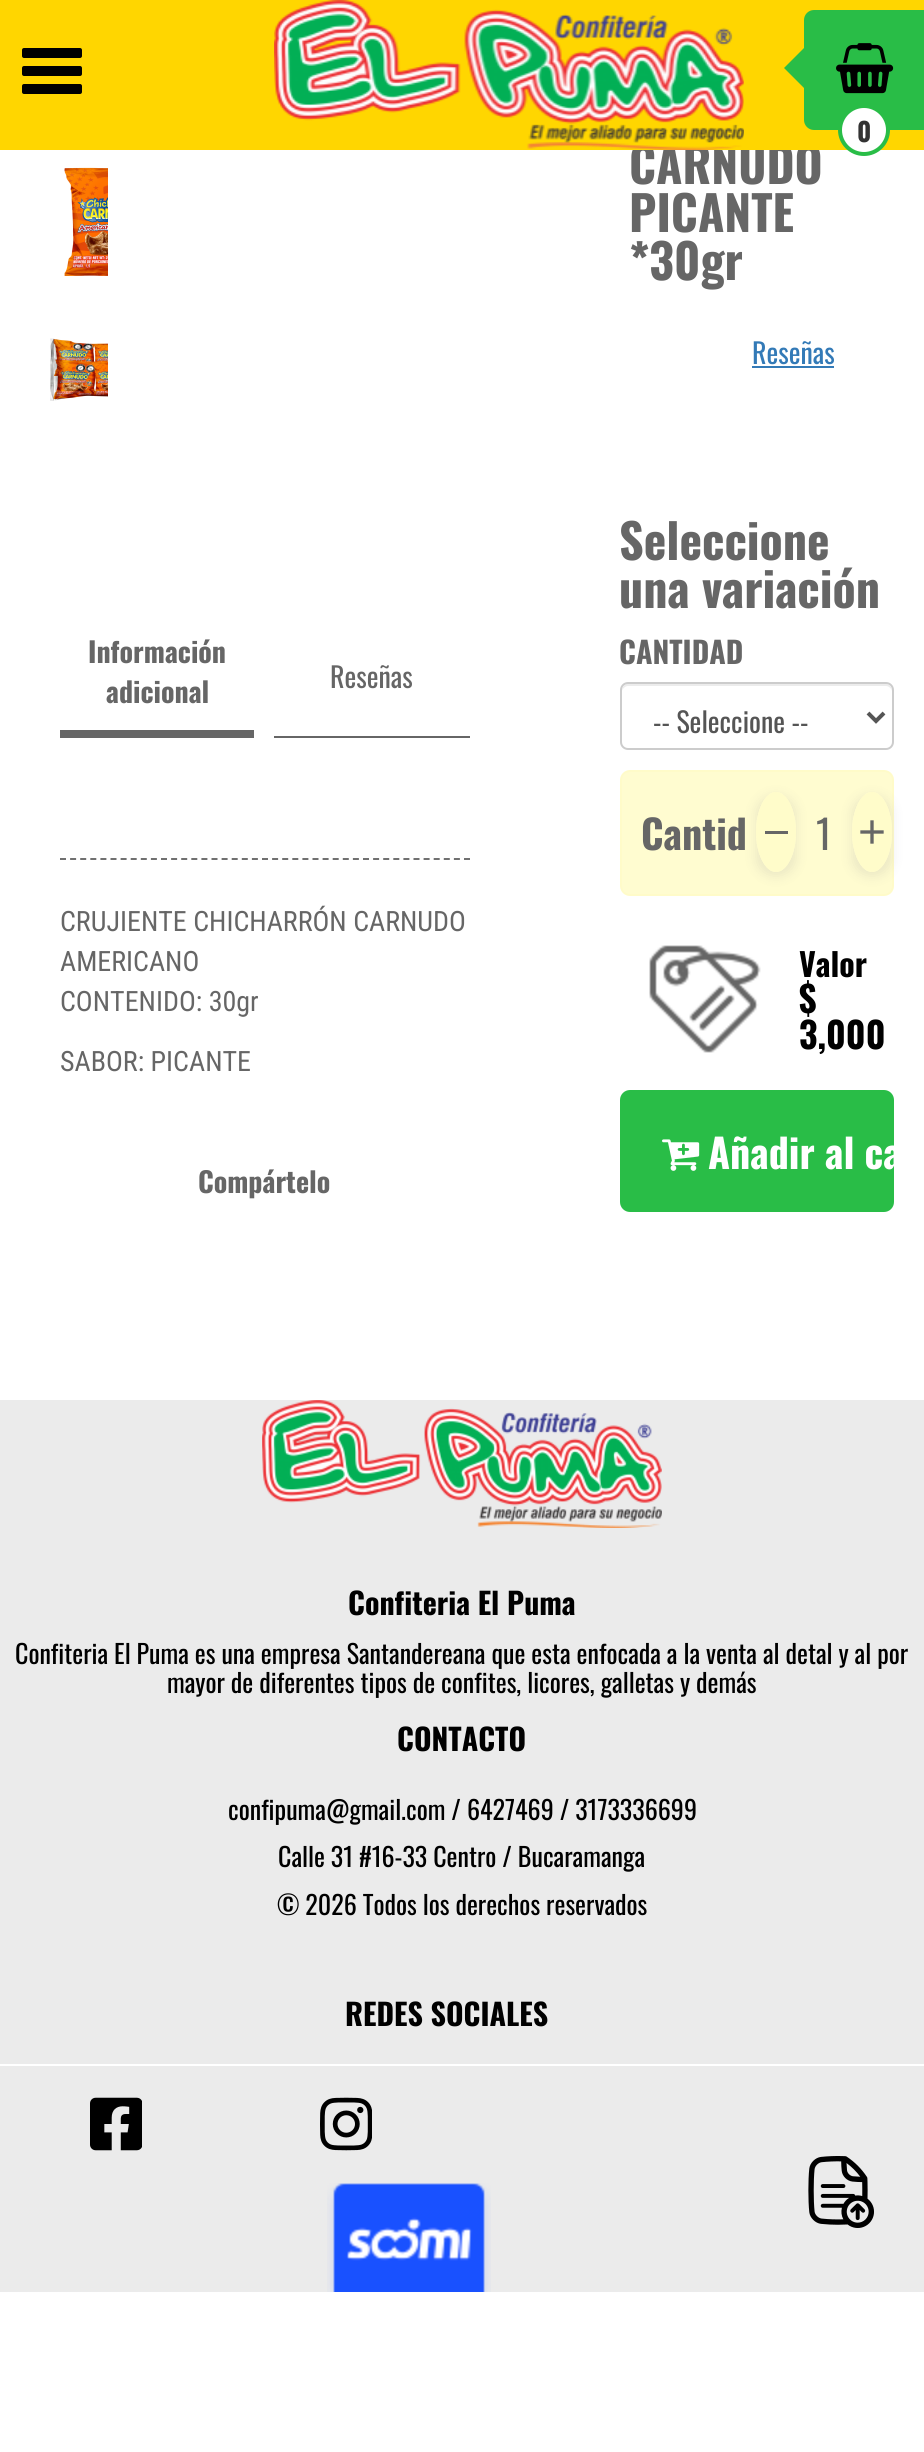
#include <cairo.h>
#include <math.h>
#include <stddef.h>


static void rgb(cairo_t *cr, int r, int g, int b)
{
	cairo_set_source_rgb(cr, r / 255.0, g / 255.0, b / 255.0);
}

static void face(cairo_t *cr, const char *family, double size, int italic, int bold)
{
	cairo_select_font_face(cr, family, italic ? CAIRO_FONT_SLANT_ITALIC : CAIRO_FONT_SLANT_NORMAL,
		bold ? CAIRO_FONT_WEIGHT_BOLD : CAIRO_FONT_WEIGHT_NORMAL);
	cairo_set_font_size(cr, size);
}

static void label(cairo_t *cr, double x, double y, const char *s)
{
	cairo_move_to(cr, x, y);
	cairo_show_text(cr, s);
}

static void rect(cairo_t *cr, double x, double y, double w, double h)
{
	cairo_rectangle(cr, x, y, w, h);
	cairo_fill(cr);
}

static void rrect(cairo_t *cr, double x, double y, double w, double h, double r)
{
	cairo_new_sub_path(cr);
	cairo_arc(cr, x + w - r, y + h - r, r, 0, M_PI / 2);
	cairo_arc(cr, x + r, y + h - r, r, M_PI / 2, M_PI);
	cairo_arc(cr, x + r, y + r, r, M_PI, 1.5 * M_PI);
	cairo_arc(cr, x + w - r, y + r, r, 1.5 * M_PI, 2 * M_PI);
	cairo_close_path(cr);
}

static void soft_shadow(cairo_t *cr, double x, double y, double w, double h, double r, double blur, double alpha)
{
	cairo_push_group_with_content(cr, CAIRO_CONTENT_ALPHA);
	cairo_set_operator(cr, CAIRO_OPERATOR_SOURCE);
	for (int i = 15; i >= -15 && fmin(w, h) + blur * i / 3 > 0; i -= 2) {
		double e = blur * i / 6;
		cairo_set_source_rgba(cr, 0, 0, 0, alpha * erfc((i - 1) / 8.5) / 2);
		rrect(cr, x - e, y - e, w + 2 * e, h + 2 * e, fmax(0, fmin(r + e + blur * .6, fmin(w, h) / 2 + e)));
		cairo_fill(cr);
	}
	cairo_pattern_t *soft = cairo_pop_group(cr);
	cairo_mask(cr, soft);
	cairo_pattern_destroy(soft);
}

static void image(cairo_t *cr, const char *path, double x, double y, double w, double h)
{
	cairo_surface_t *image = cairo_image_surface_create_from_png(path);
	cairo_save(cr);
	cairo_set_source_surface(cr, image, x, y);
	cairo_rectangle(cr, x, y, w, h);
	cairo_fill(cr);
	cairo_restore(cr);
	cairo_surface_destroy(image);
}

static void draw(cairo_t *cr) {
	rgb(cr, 255, 255, 255);
	cairo_paint(cr);
	face(cr, "Oswald", 48, 0, 1);
	rgb(cr, 102, 102, 102);
	label(cr, 629, 184, "CARNUDO");
	rgb(cr, 255, 214, 0);
	rect(cr, 0, 0, 924, 150);
	rgb(cr, 0, 0, 0);
	rrect(cr, 22, 48, 60, 10, 2);
	cairo_fill(cr);
	rrect(cr, 22, 66, 60, 10, 2);
	cairo_fill(cr);
	rrect(cr, 22, 84, 60, 10, 2);
	cairo_fill(cr);
	image(cr, "image0.png", 274, 0, 470, 150);
	rgb(cr, 41, 189, 71);
	cairo_new_path(cr);
	cairo_move_to(cr, 814, 10);
	cairo_line_to(cr, 924, 10);
	cairo_line_to(cr, 924, 130);
	cairo_line_to(cr, 814, 130);
	cairo_curve_to(cr, 808.5, 130, 804, 125.5, 804, 120);
	cairo_line_to(cr, 804, 20);
	cairo_curve_to(cr, 804, 14.5, 808.5, 10, 814, 10);
	cairo_close_path(cr);
	cairo_fill(cr);
	cairo_new_path(cr);
	cairo_move_to(cr, 804, 48);
	cairo_line_to(cr, 804, 88);
	cairo_line_to(cr, 784, 68);
	cairo_close_path(cr);
	cairo_fill(cr);
	image(cr, "image1.png", 836, 43, 58, 51);
	rgb(cr, 255, 255, 255);
	cairo_arc(cr, 864, 130, 24, 0, 2 * M_PI);
	cairo_fill_preserve(cr);
	rgb(cr, 41, 189, 71);
	cairo_set_line_width(cr, 4);
	cairo_stroke(cr);
	face(cr, "Oswald", 26, 0, 1);
	rgb(cr, 51, 51, 51);
	label(cr, 857, 142, "0");
	image(cr, "image2.png", 64, 167, 44, 109);
	image(cr, "image3.png", 50, 338, 58, 63);
	rgb(cr, 102, 102, 102);
	rect(cr, 60, 730, 194, 8);
	face(cr, "Oswald", 28, 0, 1);
	label(cr, 88, 663, "Información");
	label(cr, 106, 703, "adicional");
	rect(cr, 274, 736, 196, 2);
	face(cr, "Oswald", 28, 0, 0);
	label(cr, 330, 688, "Reseñas");
	cairo_new_path(cr);
	cairo_move_to(cr, 60, 859);
	cairo_line_to(cr, 470, 859);
	rgb(cr, 112, 112, 112);
	cairo_set_line_width(cr, 2);
	cairo_set_dash(cr, (double[]){6, 4.1}, 2, 0);
	cairo_stroke(cr);
	face(cr, "Roboto Condensed", 28, 0, 0);
	rgb(cr, 102, 102, 102);
	label(cr, 60, 931, "CRUJIENTE CHICHARRÓN CARNUDO");
	label(cr, 60, 971, "AMERICANO");
	label(cr, 60, 1011, "CONTENIDO: 30gr");
	label(cr, 60, 1071, "SABOR: PICANTE");
	face(cr, "Oswald", 28, 0, 1);
	label(cr, 198, 1193, "Compártelo");
	face(cr, "Oswald", 48, 0, 1);
	label(cr, 629, 232, "PICANTE");
	label(cr, 629, 280, "*30gr");
	face(cr, "Oswald", 28, 0, 0);
	rgb(cr, 51, 122, 183);
	label(cr, 752, 364, "Reseñas");
	rect(cr, 752, 366, 82, 2);
	face(cr, "Oswald", 48, 0, 1);
	rgb(cr, 102, 102, 102);
	label(cr, 619, 560, "Seleccione");
	label(cr, 619, 608, "una variación");
	face(cr, "Oswald", 30, 0, 1);
	label(cr, 619, 664, "CANTIDAD");
	rgb(cr, 236, 236, 236);
	cairo_new_path(cr);
	cairo_move_to(cr, 628, 686);
	cairo_line_to(cr, 886, 686);
	cairo_curve_to(cr, 889, 686, 892, 689, 892, 692);
	cairo_curve_to(cr, 892, 689, 891, 685, 887, 684);
	cairo_line_to(cr, 627, 684);
	cairo_curve_to(cr, 623, 685, 622, 689, 622, 692);
	cairo_curve_to(cr, 622, 689, 625, 686, 628, 686);
	cairo_close_path(cr);
	cairo_fill(cr);
	rrect(cr, 621, 683, 272, 66, 7);
	rgb(cr, 204, 204, 204);
	cairo_set_dash(cr, NULL, 0, 0);
	cairo_stroke(cr);
	cairo_new_path(cr);
	cairo_move_to(cr, 868, 713);
	cairo_line_to(cr, 876, 721);
	cairo_line_to(cr, 884, 713);
	rgb(cr, 85, 85, 85);
	cairo_set_line_width(cr, 4);
	cairo_stroke(cr);
	face(cr, "Oswald", 28, 0, 0);
	label(cr, 653, 733, "-- Seleccione --");
	rgb(cr, 255, 252, 208);
	rrect(cr, 621, 771, 272, 124, 9);
	cairo_fill_preserve(cr);
	rgb(cr, 255, 251, 201);
	cairo_set_line_width(cr, 2);
	cairo_stroke(cr);
	face(cr, "Oswald", 40, 0, 1);
	rgb(cr, 102, 102, 102);
	label(cr, 641, 850, "Cantid");
	cairo_save(cr);
	cairo_set_fill_rule(cr, CAIRO_FILL_RULE_EVEN_ODD);
	cairo_new_path(cr);
	cairo_move_to(cr, 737, 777);
	cairo_line_to(cr, 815, 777);
	cairo_line_to(cr, 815, 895);
	cairo_line_to(cr, 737, 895);
	cairo_close_path(cr);
	cairo_move_to(cr, 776, 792);
	cairo_curve_to(cr, 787, 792, 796, 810, 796, 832);
	cairo_curve_to(cr, 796, 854, 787, 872, 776, 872);
	cairo_curve_to(cr, 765, 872, 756, 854, 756, 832);
	cairo_curve_to(cr, 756, 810, 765, 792, 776, 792);
	cairo_close_path(cr);
	cairo_clip(cr);
	rgb(cr, 50, 50, 93);
	soft_shadow(cr, 756, 796, 40, 80, 20, 6, 0.1);
	cairo_restore(cr);
	cairo_set_source_rgba(cr, 1, 0.984, 0.788, 0.87);
	cairo_new_path(cr);
	cairo_move_to(cr, 776, 792);
	cairo_curve_to(cr, 787, 792, 796, 810, 796, 832);
	cairo_curve_to(cr, 796, 854, 787, 872, 776, 872);
	cairo_curve_to(cr, 765, 872, 756, 854, 756, 832);
	cairo_curve_to(cr, 756, 810, 765, 792, 776, 792);
	cairo_close_path(cr);
	cairo_fill(cr);
	rgb(cr, 102, 102, 102);
	rect(cr, 765, 831, 23, 3);
	face(cr, "Oswald", 40, 0, 0);
	label(cr, 816, 850, "1");
	cairo_save(cr);
	cairo_set_fill_rule(cr, CAIRO_FILL_RULE_EVEN_ODD);
	cairo_new_path(cr);
	cairo_move_to(cr, 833, 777);
	cairo_line_to(cr, 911, 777);
	cairo_line_to(cr, 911, 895);
	cairo_line_to(cr, 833, 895);
	cairo_close_path(cr);
	cairo_move_to(cr, 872, 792);
	cairo_curve_to(cr, 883, 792, 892, 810, 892, 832);
	cairo_curve_to(cr, 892, 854, 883, 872, 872, 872);
	cairo_curve_to(cr, 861, 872, 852, 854, 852, 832);
	cairo_curve_to(cr, 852, 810, 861, 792, 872, 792);
	cairo_close_path(cr);
	cairo_clip(cr);
	rgb(cr, 50, 50, 93);
	soft_shadow(cr, 852, 796, 40, 80, 20, 6, 0.1);
	cairo_restore(cr);
	cairo_set_source_rgba(cr, 1, 0.984, 0.788, 0.87);
	cairo_new_path(cr);
	cairo_move_to(cr, 872, 792);
	cairo_curve_to(cr, 883, 792, 892, 810, 892, 832);
	cairo_curve_to(cr, 892, 854, 883, 872, 872, 872);
	cairo_curve_to(cr, 861, 872, 852, 854, 852, 832);
	cairo_curve_to(cr, 852, 810, 861, 792, 872, 792);
	cairo_close_path(cr);
	cairo_fill(cr);
	image(cr, "image4.png", 860, 820, 24, 24);
	image(cr, "image5.png", 649, 945, 112, 108);
	face(cr, "Oswald", 32, 0, 1);
	rgb(cr, 0, 0, 0);
	label(cr, 799, 977, "Valor");
	face(cr, "Oswald", 36, 0, 1);
	label(cr, 799, 1013, "$");
	label(cr, 799, 1049, "3,000");
	rgb(cr, 41, 189, 71);
	rrect(cr, 620, 1090, 274, 122, 10);
	cairo_fill(cr);
	image(cr, "image6.png", 662, 1139, 38, 32);
	face(cr, "Oswald", 40, 0, 1);
	rgb(cr, 255, 255, 255);
	label(cr, 708, 1169, "Añadir al ca");
	rgb(cr, 235, 235, 235);
	rect(cr, 0, 1400, 924, 892);
	image(cr, "image7.png", 262, 1400, 400, 128);
	face(cr, "Oswald", 30, 0, 1);
	rgb(cr, 0, 0, 0);
	label(cr, 348, 1615, "Confiteria El Puma");
	face(cr, "Oswald", 26, 0, 0);
	label(cr, 15, 1664, "Confiteria El Puma es una empresa Santandereana que esta enfocada a la venta al detal y al por");
	label(cr, 167, 1693, "mayor de diferentes tipos de confites, licores, galletas y demás");
	face(cr, "Oswald", 30, 0, 1);
	label(cr, 397, 1751, "CONTACTO");
	face(cr, "Oswald", 26, 0, 0);
	label(cr, 228, 1820, "confipuma@gmail.com / 6427469 / 3173336699");
	label(cr, 278, 1867, "Calle 31 #16-33 Centro / Bucaramanga");
	label(cr, 277, 1915, "© 2026 Todos los derechos reservados");
	rgb(cr, 255, 255, 255);
	rect(cr, 0, 2064, 924, 2);
	face(cr, "Oswald", 30, 0, 1);
	rgb(cr, 0, 0, 0);
	label(cr, 345, 2026, "REDES SOCIALES");
	image(cr, "image8.png", 90, 2097, 52, 54);
	image(cr, "image9.png", 320, 2097, 52, 54);
	image(cr, "image10.png", 327, 2183, 164, 109);
	image(cr, "image11.png", 808, 2156, 66, 72);
}

int main(void) {
	cairo_surface_t *surface = cairo_image_surface_create(CAIRO_FORMAT_RGB24, 924, 2452);
	cairo_t *cr = cairo_create(surface);
	cairo_font_options_t *options = cairo_font_options_create();
	cairo_font_options_set_hint_metrics(options, CAIRO_HINT_METRICS_OFF);
	cairo_font_options_set_hint_style(options, CAIRO_HINT_STYLE_NONE);
	cairo_set_font_options(cr, options);
	cairo_set_miter_limit(cr, 4);
	draw(cr);
	cairo_surface_write_to_png(surface, "render.png");
	cairo_font_options_destroy(options);
	cairo_destroy(cr);
	cairo_surface_destroy(surface);
	return 0;
}
